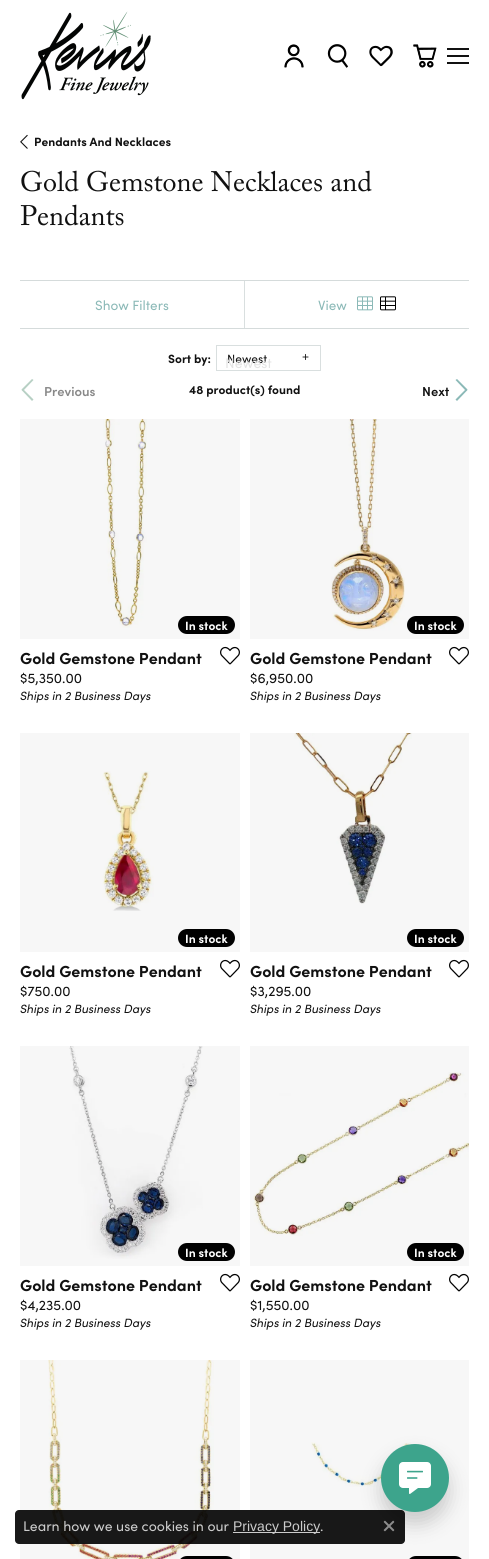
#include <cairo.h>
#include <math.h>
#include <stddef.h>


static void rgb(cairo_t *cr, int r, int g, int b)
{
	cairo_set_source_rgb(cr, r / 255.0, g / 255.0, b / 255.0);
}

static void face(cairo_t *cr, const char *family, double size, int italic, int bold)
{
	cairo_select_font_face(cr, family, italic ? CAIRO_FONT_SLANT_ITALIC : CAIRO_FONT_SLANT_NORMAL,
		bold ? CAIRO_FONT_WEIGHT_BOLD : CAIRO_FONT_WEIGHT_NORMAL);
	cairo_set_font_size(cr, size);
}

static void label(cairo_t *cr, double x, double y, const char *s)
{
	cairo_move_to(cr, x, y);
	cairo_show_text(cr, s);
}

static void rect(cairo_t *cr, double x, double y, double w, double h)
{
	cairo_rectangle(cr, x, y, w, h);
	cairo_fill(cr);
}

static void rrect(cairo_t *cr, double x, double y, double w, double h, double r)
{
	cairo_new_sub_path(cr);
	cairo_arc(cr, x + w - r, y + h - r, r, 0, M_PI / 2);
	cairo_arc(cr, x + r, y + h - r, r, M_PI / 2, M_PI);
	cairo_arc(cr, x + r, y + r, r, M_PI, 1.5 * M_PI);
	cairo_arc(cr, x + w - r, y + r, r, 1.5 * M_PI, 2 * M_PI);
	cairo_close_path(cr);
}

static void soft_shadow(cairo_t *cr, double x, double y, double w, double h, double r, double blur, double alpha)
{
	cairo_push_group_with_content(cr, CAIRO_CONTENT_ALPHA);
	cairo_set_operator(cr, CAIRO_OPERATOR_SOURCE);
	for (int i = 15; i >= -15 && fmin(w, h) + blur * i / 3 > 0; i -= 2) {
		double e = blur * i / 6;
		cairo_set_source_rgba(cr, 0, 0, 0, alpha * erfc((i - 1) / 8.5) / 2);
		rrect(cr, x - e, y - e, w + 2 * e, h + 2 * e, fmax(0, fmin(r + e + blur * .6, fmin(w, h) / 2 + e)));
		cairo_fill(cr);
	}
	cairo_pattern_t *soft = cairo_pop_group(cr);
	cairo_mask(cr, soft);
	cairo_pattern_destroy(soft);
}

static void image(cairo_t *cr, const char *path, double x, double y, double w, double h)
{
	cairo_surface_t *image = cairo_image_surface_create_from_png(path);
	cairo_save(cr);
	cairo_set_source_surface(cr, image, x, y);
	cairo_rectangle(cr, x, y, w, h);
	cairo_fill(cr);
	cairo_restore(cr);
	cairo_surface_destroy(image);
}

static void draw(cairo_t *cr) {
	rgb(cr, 255, 255, 255);
	cairo_paint(cr);
	image(cr, "image0.png", 21, 11, 130, 89);
	image(cr, "image1.png", 284, 44, 20, 24);
	image(cr, "image2.png", 327, 44, 21, 24);
	image(cr, "image3.png", 369, 45, 24, 22);
	image(cr, "image4.png", 413, 44, 24, 24);
	rgb(cr, 17, 17, 17);
	rect(cr, 447, 48, 22, 2);
	rect(cr, 447, 55, 22, 2);
	rect(cr, 447, 62, 22, 2);
	image(cr, "image5.png", 20, 134, 8, 15);
	face(cr, "Sofia", 12, 0, 1);
	label(cr, 34, 146, "Pendants And Necklaces");
	face(cr, "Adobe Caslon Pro", 28.1, 0, 0);
	label(cr, 20, 191, "Gold Gemstone Necklaces and");
	label(cr, 20, 225, "Pendants");
	rgb(cr, 247, 247, 247);
	rect(cr, 250, 1360, 219, 199);
	rect(cr, 20, 1360, 220, 199);
	rect(cr, 250, 1046, 219, 220);
	rect(cr, 20, 1046, 220, 220);
	rect(cr, 250, 733, 219, 219);
	rect(cr, 20, 733, 220, 219);
	rect(cr, 250, 419, 219, 220);
	rect(cr, 20, 419, 220, 220);
	rgb(cr, 213, 219, 219);
	rect(cr, 20, 280, 449, 1);
	rgb(cr, 217, 223, 223);
	rect(cr, 244, 281, 1, 47);
	face(cr, "Sofia", 13.5, 0, 0);
	rgb(cr, 139, 185, 183);
	label(cr, 95, 310, "Show Filters");
	label(cr, 318, 310, "View");
	image(cr, "image6.png", 357, 296, 16, 15);
	image(cr, "image7.png", 380, 296, 16, 15);
	rgb(cr, 213, 219, 219);
	rect(cr, 20, 328, 449, 1);
	face(cr, "Sofia", 12, 0, 1);
	rgb(cr, 17, 17, 17);
	label(cr, 168, 363, "Sort by:");
	cairo_rectangle(cr, 216.5, 345.5, 104, 25);
	rgb(cr, 217, 223, 223);
	cairo_set_line_width(cr, 1);
	cairo_stroke(cr);
	face(cr, "Sofia", 12, 0, 0);
	rgb(cr, 17, 17, 17);
	label(cr, 227, 363, "Newest");
	face(cr, "Liberation Sans", 12, 0, 0);
	label(cr, 302, 361, "+");
	face(cr, "Sofia", 14, 0, 0);
	rgb(cr, 228, 228, 228);
	label(cr, 225, 368, "Newest");
	face(cr, "Sofia", 12, 0, 1);
	rgb(cr, 17, 17, 17);
	label(cr, 189, 394, "48 product(s) found");
	rgb(cr, 183, 208, 196);
	cairo_new_path(cr);
	cairo_move_to(cr, 21.5, 389.5);
	cairo_line_to(cr, 32, 379);
	cairo_line_to(cr, 33.5, 380);
	cairo_line_to(cr, 23, 391);
	cairo_close_path(cr);
	cairo_fill(cr);
	cairo_new_path(cr);
	cairo_move_to(cr, 23, 389);
	cairo_line_to(cr, 33.5, 399.5);
	cairo_line_to(cr, 32, 401);
	cairo_line_to(cr, 21.5, 390);
	cairo_close_path(cr);
	cairo_fill(cr);
	face(cr, "Sofia SemiBold", 13, 0, 0);
	rgb(cr, 136, 136, 136);
	label(cr, 44, 396, "Previous");
	rgb(cr, 139, 185, 183);
	cairo_new_path(cr);
	cairo_move_to(cr, 457, 379);
	cairo_line_to(cr, 467.5, 389.5);
	cairo_line_to(cr, 466, 391);
	cairo_line_to(cr, 455.5, 380);
	cairo_close_path(cr);
	cairo_fill(cr);
	rgb(cr, 17, 17, 17);
	label(cr, 422, 396, "Next");
	rgb(cr, 139, 185, 183);
	cairo_new_path(cr);
	cairo_move_to(cr, 455.5, 399.5);
	cairo_line_to(cr, 466, 389);
	cairo_line_to(cr, 467.5, 390);
	cairo_line_to(cr, 457, 401);
	cairo_close_path(cr);
	cairo_fill(cr);
	image(cr, "image8.png", 103, 419, 44, 209);
	rgb(cr, 0, 0, 0);
	rrect(cr, 178, 616, 57, 18, 9);
	cairo_fill(cr);
	face(cr, "Sofia", 12, 0, 1);
	rgb(cr, 255, 255, 255);
	label(cr, 185, 630, "In stock");
	face(cr, "Sofia", 16, 0, 1);
	rgb(cr, 17, 17, 17);
	label(cr, 20, 664, "Gold Gemstone Pendant");
	image(cr, "image9.png", 220, 646, 20, 19);
	face(cr, "Sofia", 14, 0, 0);
	label(cr, 20, 683, "$5,350.00");
	face(cr, "Sofia", 12, 1, 0);
	label(cr, 20, 700, "Ships in 2 Business Days");
	image(cr, "image10.png", 330, 419, 75, 212);
	rgb(cr, 0, 0, 0);
	rrect(cr, 407, 616, 57, 18, 9);
	cairo_fill(cr);
	face(cr, "Sofia", 12, 0, 1);
	rgb(cr, 255, 255, 255);
	label(cr, 414, 630, "In stock");
	face(cr, "Sofia", 16, 0, 1);
	rgb(cr, 17, 17, 17);
	label(cr, 250, 664, "Gold Gemstone Pendant");
	image(cr, "image9.png", 449, 646, 20, 19);
	face(cr, "Sofia", 14, 0, 0);
	label(cr, 250, 683, "$6,950.00");
	face(cr, "Sofia", 12, 1, 0);
	label(cr, 250, 700, "Ships in 2 Business Days");
	image(cr, "image11.png", 102, 771, 52, 140);
	rgb(cr, 0, 0, 0);
	rrect(cr, 178, 929, 57, 18, 9);
	cairo_fill(cr);
	face(cr, "Sofia", 12, 0, 1);
	rgb(cr, 255, 255, 255);
	label(cr, 185, 943, "In stock");
	face(cr, "Sofia", 16, 0, 1);
	rgb(cr, 17, 17, 17);
	label(cr, 20, 977, "Gold Gemstone Pendant");
	image(cr, "image9.png", 220, 959, 20, 19);
	face(cr, "Sofia", 14, 0, 0);
	label(cr, 20, 996, "$750.00");
	face(cr, "Sofia", 12, 1, 0);
	label(cr, 20, 1013, "Ships in 2 Business Days");
	image(cr, "image12.png", 294, 733, 118, 171);
	rgb(cr, 0, 0, 0);
	rrect(cr, 407, 929, 57, 18, 9);
	cairo_fill(cr);
	face(cr, "Sofia", 12, 0, 1);
	rgb(cr, 255, 255, 255);
	label(cr, 414, 943, "In stock");
	face(cr, "Sofia", 16, 0, 1);
	rgb(cr, 17, 17, 17);
	label(cr, 250, 977, "Gold Gemstone Pendant");
	image(cr, "image9.png", 449, 959, 20, 19);
	face(cr, "Sofia", 14, 0, 0);
	label(cr, 250, 996, "$3,295.00");
	face(cr, "Sofia", 12, 1, 0);
	label(cr, 250, 1013, "Ships in 2 Business Days");
	image(cr, "image13.png", 69, 1046, 134, 213);
	rgb(cr, 0, 0, 0);
	rrect(cr, 178, 1243, 57, 18, 9);
	cairo_fill(cr);
	face(cr, "Sofia", 12, 0, 1);
	rgb(cr, 255, 255, 255);
	label(cr, 185, 1257, "In stock");
	face(cr, "Sofia", 16, 0, 1);
	rgb(cr, 17, 17, 17);
	label(cr, 20, 1291, "Gold Gemstone Pendant");
	image(cr, "image9.png", 220, 1273, 20, 19);
	face(cr, "Sofia", 14, 0, 0);
	label(cr, 20, 1310, "$4,235.00");
	face(cr, "Sofia", 12, 1, 0);
	label(cr, 20, 1327, "Ships in 2 Business Days");
	image(cr, "image14.png", 253, 1072, 216, 164);
	rgb(cr, 0, 0, 0);
	rrect(cr, 407, 1243, 57, 18, 9);
	cairo_fill(cr);
	face(cr, "Sofia", 12, 0, 1);
	rgb(cr, 255, 255, 255);
	label(cr, 414, 1257, "In stock");
	face(cr, "Sofia", 16, 0, 1);
	rgb(cr, 17, 17, 17);
	label(cr, 250, 1291, "Gold Gemstone Pendant");
	image(cr, "image9.png", 449, 1273, 20, 19);
	face(cr, "Sofia", 14, 0, 0);
	label(cr, 250, 1310, "$1,550.00");
	face(cr, "Sofia", 12, 1, 0);
	label(cr, 250, 1327, "Ships in 2 Business Days");
	image(cr, "image15.png", 48, 1360, 166, 199);
	rgb(cr, 0, 0, 0);
	rrect(cr, 178, 1556, 57, 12, 9);
	cairo_fill(cr);
	image(cr, "image16.png", 311, 1442, 100, 45);
	rrect(cr, 407, 1556, 57, 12, 9);
	cairo_fill(cr);
	rgb(cr, 0, 0, 0);
	soft_shadow(cr, 381, 1456, 68, 68, 34, 9.5, 0.18);
	rgb(cr, 61, 164, 140);
	cairo_arc(cr, 415, 1478, 34, 0, 2 * M_PI);
	cairo_fill(cr);
	cairo_set_source_rgba(cr, 0, 0, 0, 0.9);
	rrect(cr, 15, 1510, 390, 34, 4);
	cairo_fill(cr);
	face(cr, "Sofia", 14, 0, 0);
	rgb(cr, 204, 204, 204);
	label(cr, 23, 1531, "Learn how we use cookies in our");
	rect(cr, 233, 1532, 87, 1);
	face(cr, "Liberation Sans", 14, 0, 0);
	label(cr, 233, 1531, "Privacy Policy");
	face(cr, "Sofia", 14, 0, 0);
	label(cr, 320, 1531, ".");
	image(cr, "image17.png", 383, 1520, 12, 12);
	image(cr, "image18.png", 399, 1462, 32, 32);
}

int main(void) {
	cairo_surface_t *surface = cairo_image_surface_create(CAIRO_FORMAT_RGB24, 489, 1559);
	cairo_t *cr = cairo_create(surface);
	cairo_font_options_t *options = cairo_font_options_create();
	cairo_font_options_set_hint_metrics(options, CAIRO_HINT_METRICS_OFF);
	cairo_font_options_set_hint_style(options, CAIRO_HINT_STYLE_NONE);
	cairo_set_font_options(cr, options);
	cairo_set_miter_limit(cr, 4);
	draw(cr);
	cairo_surface_write_to_png(surface, "render.png");
	cairo_font_options_destroy(options);
	cairo_destroy(cr);
	cairo_surface_destroy(surface);
	return 0;
}
